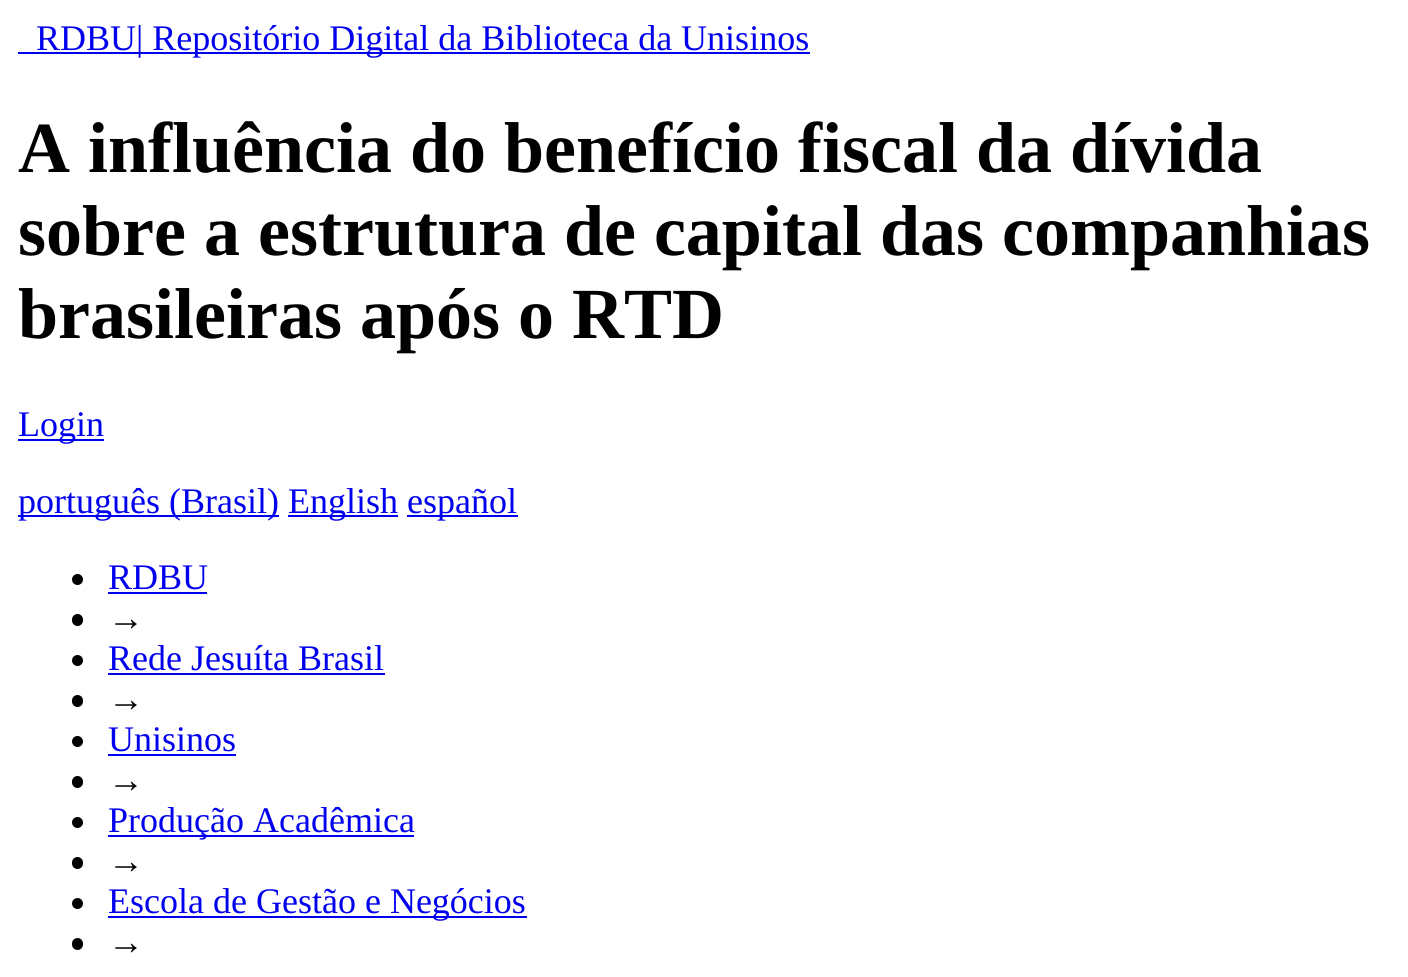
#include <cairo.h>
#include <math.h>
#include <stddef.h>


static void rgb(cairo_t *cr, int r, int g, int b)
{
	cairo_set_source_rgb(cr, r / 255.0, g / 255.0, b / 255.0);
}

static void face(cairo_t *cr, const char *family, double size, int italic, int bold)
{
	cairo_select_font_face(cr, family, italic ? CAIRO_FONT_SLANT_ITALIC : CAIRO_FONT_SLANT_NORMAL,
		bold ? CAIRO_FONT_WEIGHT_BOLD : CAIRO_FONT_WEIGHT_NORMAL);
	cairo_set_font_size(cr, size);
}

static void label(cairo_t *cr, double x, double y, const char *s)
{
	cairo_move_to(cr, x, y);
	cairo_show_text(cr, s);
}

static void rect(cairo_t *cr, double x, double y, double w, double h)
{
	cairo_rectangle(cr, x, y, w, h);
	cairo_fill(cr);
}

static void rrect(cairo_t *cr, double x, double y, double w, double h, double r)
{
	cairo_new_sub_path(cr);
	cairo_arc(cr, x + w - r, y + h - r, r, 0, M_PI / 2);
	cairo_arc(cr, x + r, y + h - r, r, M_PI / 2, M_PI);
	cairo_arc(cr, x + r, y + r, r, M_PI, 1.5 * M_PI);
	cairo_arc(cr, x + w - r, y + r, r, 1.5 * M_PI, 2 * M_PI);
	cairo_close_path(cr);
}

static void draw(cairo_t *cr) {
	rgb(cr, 255, 255, 255);
	cairo_paint(cr);
	rgb(cr, 0, 0, 238);
	rect(cr, 18, 52, 792, 2);
	face(cr, "Liberation Serif", 36, 0, 0);
	label(cr, 36, 50, "RDBU| Repositório Digital da Biblioteca da Unisinos");
	face(cr, "Liberation Serif", 72, 0, 1);
	rgb(cr, 0, 0, 0);
	label(cr, 18, 172, "A influência do benefício fiscal da dívida");
	label(cr, 18, 255, "sobre a estrutura de capital das companhias");
	label(cr, 18, 338, "brasileiras após o RTD");
	rgb(cr, 0, 0, 238);
	rect(cr, 18, 439, 86, 2);
	face(cr, "Liberation Serif", 36, 0, 0);
	label(cr, 18, 436, "Login");
	rect(cr, 18, 515, 261, 2);
	label(cr, 18, 513, "português (Brasil)");
	rect(cr, 288, 515, 110, 2);
	label(cr, 288, 513, "English");
	rect(cr, 407, 515, 111, 2);
	label(cr, 407, 513, "español");
	rgb(cr, 0, 0, 0);
	cairo_new_path(cr);
	cairo_arc(cr, 77.5, 579.5, 5.5, 0, 2 * M_PI);
	cairo_fill(cr);
	rgb(cr, 0, 0, 238);
	label(cr, 108, 589, "RDBU");
	rect(cr, 108, 592, 99, 2);
	rgb(cr, 0, 0, 0);
	rrect(cr, 72, 614, 11, 12, 5.5);
	cairo_fill(cr);
	label(cr, 108, 630, "→");
	cairo_new_path(cr);
	cairo_arc(cr, 77.5, 660.5, 5.5, 0, 2 * M_PI);
	cairo_fill(cr);
	rgb(cr, 0, 0, 238);
	label(cr, 108, 670, "Rede Jesuíta Brasil");
	rect(cr, 108, 673, 277, 2);
	rgb(cr, 0, 0, 0);
	rrect(cr, 72, 695, 11, 12, 5.5);
	cairo_fill(cr);
	label(cr, 108, 711, "→");
	cairo_new_path(cr);
	cairo_arc(cr, 77.5, 741.5, 5.5, 0, 2 * M_PI);
	cairo_fill(cr);
	rgb(cr, 0, 0, 238);
	label(cr, 108, 751, "Unisinos");
	rect(cr, 108, 754, 128, 2);
	rgb(cr, 0, 0, 0);
	rrect(cr, 72, 776, 11, 12, 5.5);
	cairo_fill(cr);
	label(cr, 108, 792, "→");
	cairo_new_path(cr);
	cairo_arc(cr, 77.5, 822.5, 5.5, 0, 2 * M_PI);
	cairo_fill(cr);
	rgb(cr, 0, 0, 238);
	rect(cr, 108, 835, 306, 2);
	label(cr, 108, 832, "Produção Acadêmica");
	rgb(cr, 0, 0, 0);
	rrect(cr, 72, 857, 11, 12, 5.5);
	cairo_fill(cr);
	label(cr, 108, 873, "→");
	cairo_new_path(cr);
	cairo_arc(cr, 77.5, 903.5, 5.5, 0, 2 * M_PI);
	cairo_fill(cr);
	rgb(cr, 0, 0, 238);
	rect(cr, 108, 916, 419, 2);
	label(cr, 108, 913, "Escola de Gestão e Negócios");
	rgb(cr, 0, 0, 0);
	rrect(cr, 72, 938, 11, 12, 5.5);
	cairo_fill(cr);
	label(cr, 108, 954, "→");
}

int main(void) {
	cairo_surface_t *surface = cairo_image_surface_create(CAIRO_FORMAT_RGB24, 1408, 977);
	cairo_t *cr = cairo_create(surface);
	cairo_font_options_t *options = cairo_font_options_create();
	cairo_font_options_set_hint_metrics(options, CAIRO_HINT_METRICS_OFF);
	cairo_font_options_set_hint_style(options, CAIRO_HINT_STYLE_NONE);
	cairo_set_font_options(cr, options);
	cairo_set_miter_limit(cr, 4);
	draw(cr);
	cairo_surface_write_to_png(surface, "render.png");
	cairo_font_options_destroy(options);
	cairo_destroy(cr);
	cairo_surface_destroy(surface);
	return 0;
}
